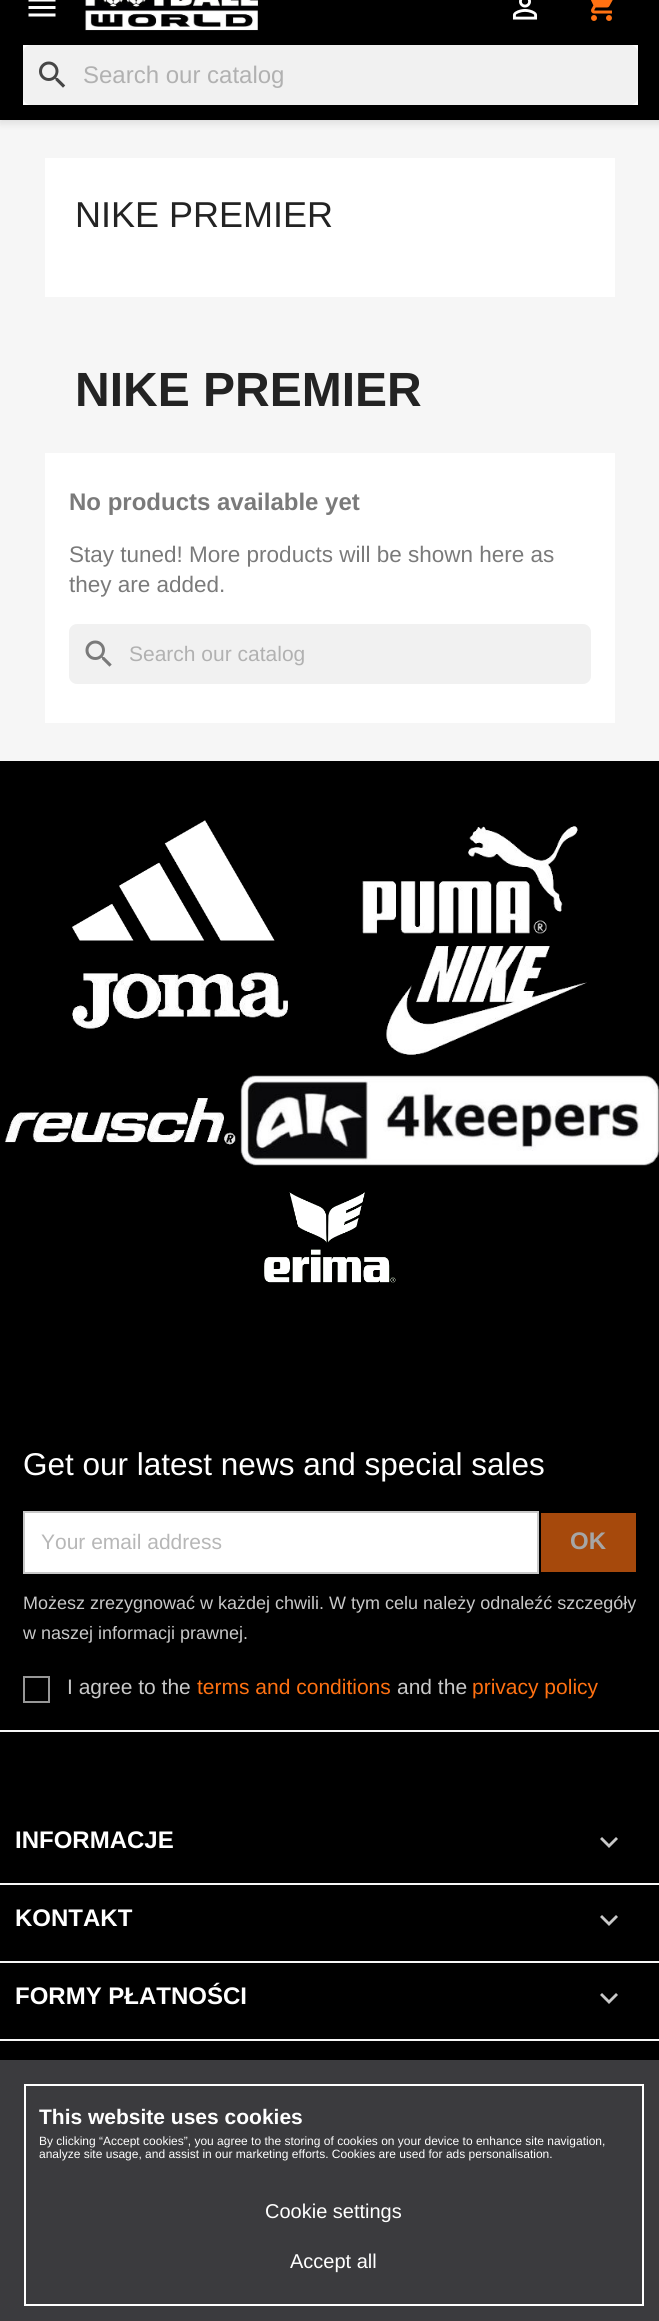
#include <cairo.h>
#include <math.h>
#include <stddef.h>


static void rgb(cairo_t *cr, int r, int g, int b)
{
	cairo_set_source_rgb(cr, r / 255.0, g / 255.0, b / 255.0);
}

static void face(cairo_t *cr, const char *family, double size, int italic, int bold)
{
	cairo_select_font_face(cr, family, italic ? CAIRO_FONT_SLANT_ITALIC : CAIRO_FONT_SLANT_NORMAL,
		bold ? CAIRO_FONT_WEIGHT_BOLD : CAIRO_FONT_WEIGHT_NORMAL);
	cairo_set_font_size(cr, size);
}

static void label(cairo_t *cr, double x, double y, const char *s)
{
	cairo_move_to(cr, x, y);
	cairo_show_text(cr, s);
}

static void rect(cairo_t *cr, double x, double y, double w, double h)
{
	cairo_rectangle(cr, x, y, w, h);
	cairo_fill(cr);
}

static void rrect(cairo_t *cr, double x, double y, double w, double h, double r)
{
	cairo_new_sub_path(cr);
	cairo_arc(cr, x + w - r, y + h - r, r, 0, M_PI / 2);
	cairo_arc(cr, x + r, y + h - r, r, M_PI / 2, M_PI);
	cairo_arc(cr, x + r, y + r, r, M_PI, 1.5 * M_PI);
	cairo_arc(cr, x + w - r, y + r, r, 1.5 * M_PI, 2 * M_PI);
	cairo_close_path(cr);
}

static void soft_shadow(cairo_t *cr, double x, double y, double w, double h, double r, double blur, double alpha)
{
	cairo_push_group_with_content(cr, CAIRO_CONTENT_ALPHA);
	cairo_set_operator(cr, CAIRO_OPERATOR_SOURCE);
	for (int i = 15; i >= -15 && fmin(w, h) + blur * i / 3 > 0; i -= 2) {
		double e = blur * i / 6;
		cairo_set_source_rgba(cr, 0, 0, 0, alpha * erfc((i - 1) / 8.5) / 2);
		rrect(cr, x - e, y - e, w + 2 * e, h + 2 * e, fmax(0, fmin(r + e + blur * .6, fmin(w, h) / 2 + e)));
		cairo_fill(cr);
	}
	cairo_pattern_t *soft = cairo_pop_group(cr);
	cairo_mask(cr, soft);
	cairo_pattern_destroy(soft);
}

static void image(cairo_t *cr, const char *path, double x, double y, double w, double h)
{
	cairo_surface_t *image = cairo_image_surface_create_from_png(path);
	cairo_save(cr);
	cairo_set_source_surface(cr, image, x, y);
	cairo_rectangle(cr, x, y, w, h);
	cairo_fill(cr);
	cairo_restore(cr);
	cairo_surface_destroy(image);
}

static void draw(cairo_t *cr) {
	rgb(cr, 246, 246, 246);
	cairo_paint(cr);
	rgb(cr, 0, 0, 0);
	soft_shadow(cr, 0, -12, 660, 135, 0, 4, 0.11);
	rgb(cr, 0, 0, 0);
	rect(cr, 0, 0, 659, 120);
	image(cr, "image0.png", 28, 0, 28, 17);
	image(cr, "image1.png", 85, 0, 174, 31);
	image(cr, "image2.png", 512, 0, 26, 20);
	image(cr, "image3.png", 591, 0, 22, 21);
	rgb(cr, 255, 255, 255);
	rect(cr, 23, 45, 615, 60);
	rgb(cr, 241, 241, 241);
	rrect(cr, 23, 45, 615, 60, 8);
	cairo_fill(cr);
	image(cr, "image4.png", 39, 61, 27, 27);
	face(cr, "Liberation Sans", 24, 0, 0);
	rgb(cr, 177, 177, 177);
	label(cr, 83, 83, "Search our catalog");
	rgb(cr, 255, 255, 255);
	rect(cr, 45, 158, 570, 139);
	face(cr, "Liberation Sans", 36, 0, 0);
	rgb(cr, 35, 35, 35);
	label(cr, 75, 227, "NIKE PREMIER");
	face(cr, "Liberation Sans", 48, 0, 1);
	label(cr, 75, 406, "NIKE PREMIER");
	rgb(cr, 255, 255, 255);
	rect(cr, 45, 453, 570, 270);
	face(cr, "Liberation Sans", 24, 0, 1);
	rgb(cr, 122, 122, 122);
	label(cr, 69, 510, "No products available yet");
	face(cr, "Liberation Sans", 22.5, 0, 0);
	label(cr, 69, 562, "Stay tuned! More products will be shown here as");
	label(cr, 69, 592, "they are added.");
	rgb(cr, 241, 241, 241);
	rrect(cr, 69, 624, 522, 60, 8);
	cairo_fill(cr);
	image(cr, "image5.png", 85, 640, 27, 27);
	face(cr, "Liberation Sans", 21, 0, 0);
	rgb(cr, 177, 177, 177);
	label(cr, 129, 661, "Search our catalog");
	rgb(cr, 0, 0, 0);
	rect(cr, 0, 761, 659, 1299);
	image(cr, "image6.png", 72, 820, 203, 121);
	image(cr, "image7.png", 362, 826, 216, 108);
	image(cr, "image8.png", 72, 972, 216, 57);
	image(cr, "image9.png", 386, 946, 201, 109);
	image(cr, "image10.png", 4, 1098, 232, 47);
	image(cr, "image11.png", 240, 1075, 419, 91);
	image(cr, "image12.png", 264, 1192, 132, 91);
	rgb(cr, 246, 246, 246);
	rect(cr, 0, 1730, 659, 2);
	face(cr, "Liberation Sans", 31.5, 0, 0);
	rgb(cr, 255, 255, 255);
	label(cr, 23, 1475, "Get our latest news and special sales");
	cairo_rectangle(cr, 24, 1512, 514, 61);
	cairo_fill_preserve(cr);
	rgb(cr, 200, 200, 200);
	cairo_stroke(cr);
	face(cr, "Liberation Sans", 21, 0, 0);
	rgb(cr, 183, 183, 183);
	label(cr, 41, 1549, "Your email address");
	rgb(cr, 166, 73, 12);
	rect(cr, 541, 1513, 95, 59);
	face(cr, "Liberation Sans", 24, 0, 1);
	rgb(cr, 166, 166, 166);
	label(cr, 570, 1549, "OK");
	face(cr, "Liberation Sans", 18, 0, 0);
	rgb(cr, 200, 200, 200);
	label(cr, 23, 1609, "Możesz zrezygnować w każdej chwili. W tym celu należy odnaleźć szczegóły");
	label(cr, 23, 1639, "w naszej informacji prawnej.");
	cairo_rectangle(cr, 24, 1677, 25, 25);
	rgb(cr, 151, 151, 151);
	cairo_stroke(cr);
	face(cr, "Liberation Sans", 21, 0, 0);
	rgb(cr, 200, 200, 200);
	label(cr, 67, 1694, "I agree to the");
	rgb(cr, 255, 113, 18);
	label(cr, 197, 1694, "terms and conditions");
	rgb(cr, 200, 200, 200);
	label(cr, 397, 1694, "and the");
	rgb(cr, 255, 113, 18);
	label(cr, 472, 1694, "privacy policy");
	rgb(cr, 246, 246, 246);
	rect(cr, 0, 1883, 659, 2);
	face(cr, "Liberation Sans", 24, 0, 1);
	rgb(cr, 255, 255, 255);
	label(cr, 15, 1848, "INFORMACJE");
	rgb(cr, 200, 200, 200);
	cairo_new_path(cr);
	cairo_move_to(cr, 602, 1837);
	cairo_line_to(cr, 609, 1844);
	cairo_line_to(cr, 616, 1837);
	cairo_line_to(cr, 618, 1839);
	cairo_line_to(cr, 609, 1848);
	cairo_line_to(cr, 600, 1839);
	cairo_close_path(cr);
	cairo_fill(cr);
	rgb(cr, 246, 246, 246);
	rect(cr, 0, 1961, 659, 2);
	rgb(cr, 255, 255, 255);
	label(cr, 15, 1926, "KONTAKT");
	rgb(cr, 200, 200, 200);
	cairo_new_path(cr);
	cairo_move_to(cr, 602, 1915);
	cairo_line_to(cr, 609, 1922);
	cairo_line_to(cr, 616, 1915);
	cairo_line_to(cr, 618, 1917);
	cairo_line_to(cr, 609, 1926);
	cairo_line_to(cr, 600, 1917);
	cairo_close_path(cr);
	cairo_fill(cr);
	rgb(cr, 246, 246, 246);
	rect(cr, 0, 2039, 659, 2);
	rgb(cr, 255, 255, 255);
	label(cr, 15, 2004, "FORMY PŁATNOŚCI");
	rgb(cr, 200, 200, 200);
	cairo_new_path(cr);
	cairo_move_to(cr, 602, 1993);
	cairo_line_to(cr, 609, 2000);
	cairo_line_to(cr, 616, 1993);
	cairo_line_to(cr, 618, 1995);
	cairo_line_to(cr, 609, 2004);
	cairo_line_to(cr, 600, 1995);
	cairo_close_path(cr);
	cairo_fill(cr);
	rgb(cr, 59, 59, 62);
	rect(cr, 0, 2060, 659, 261);
	cairo_rectangle(cr, 25, 2085, 618, 220);
	rgb(cr, 255, 255, 255);
	cairo_stroke(cr);
	face(cr, "Liberation Sans", 21, 0, 1);
	label(cr, 39, 2124, "This website uses cookies");
	face(cr, "Liberation Sans", 12, 0, 0);
	label(cr, 39, 2145, "By clicking “Accept cookies”, you agree to the storing of cookies on your device to enhance site navigation,");
	label(cr, 39, 2158, "analyze site usage, and assist in our marketing efforts. Cookies are used for ads personalisation.");
	face(cr, "Liberation Sans", 20, 0, 0);
	label(cr, 265, 2218, "Cookie settings");
	label(cr, 290, 2268, "Accept all");
}

int main(void) {
	cairo_surface_t *surface = cairo_image_surface_create(CAIRO_FORMAT_RGB24, 659, 2321);
	cairo_t *cr = cairo_create(surface);
	cairo_font_options_t *options = cairo_font_options_create();
	cairo_font_options_set_hint_metrics(options, CAIRO_HINT_METRICS_OFF);
	cairo_font_options_set_hint_style(options, CAIRO_HINT_STYLE_NONE);
	cairo_set_font_options(cr, options);
	cairo_set_miter_limit(cr, 4);
	draw(cr);
	cairo_surface_write_to_png(surface, "render.png");
	cairo_font_options_destroy(options);
	cairo_destroy(cr);
	cairo_surface_destroy(surface);
	return 0;
}
